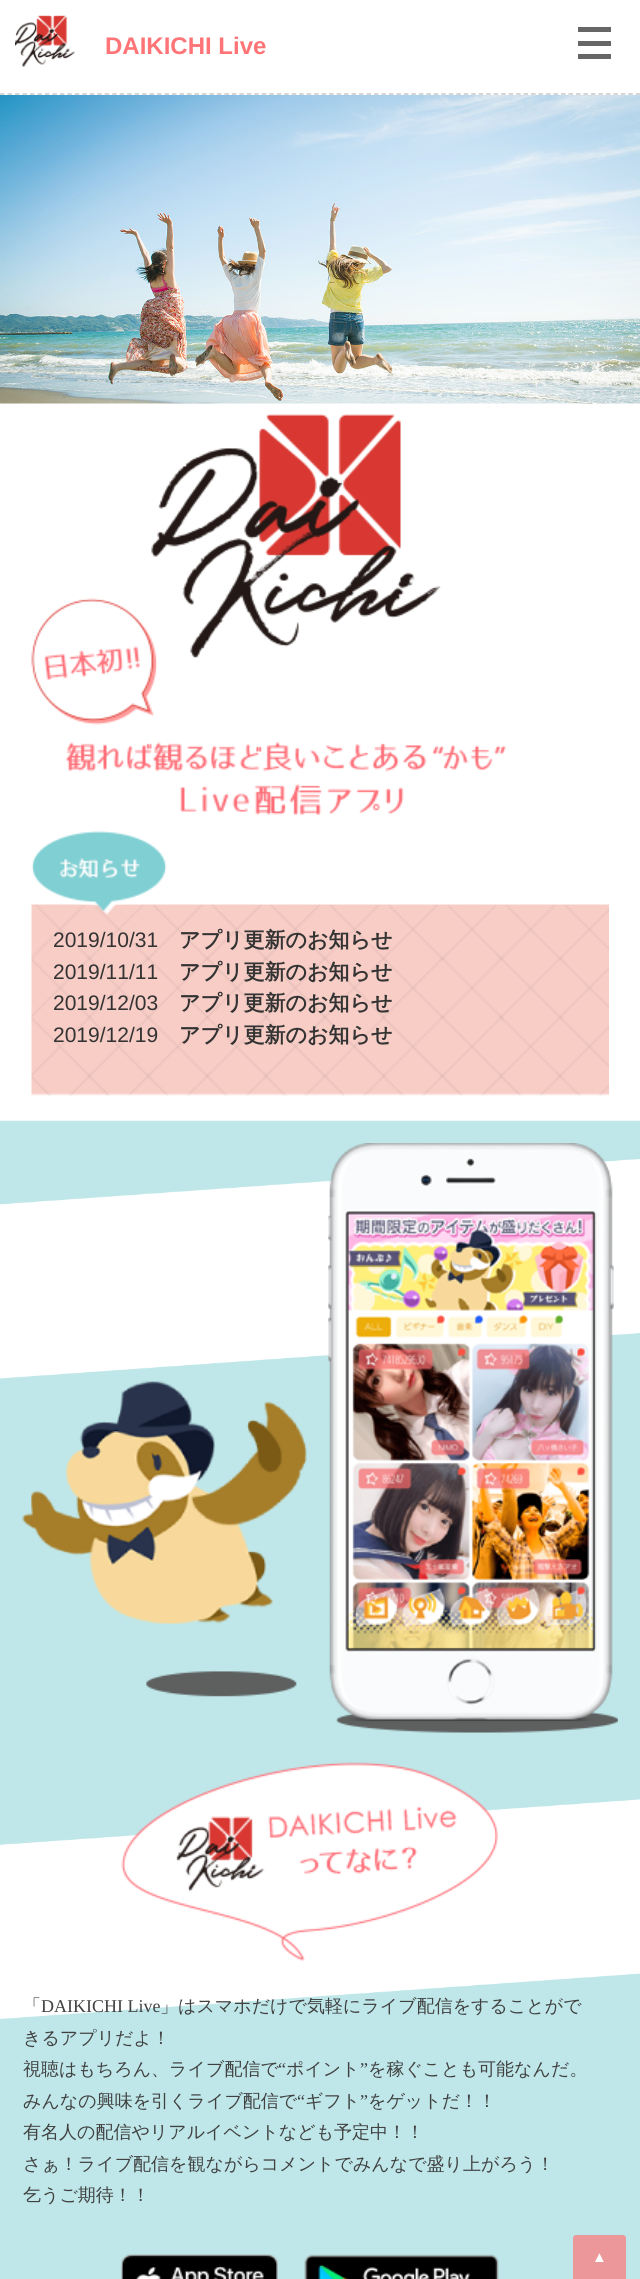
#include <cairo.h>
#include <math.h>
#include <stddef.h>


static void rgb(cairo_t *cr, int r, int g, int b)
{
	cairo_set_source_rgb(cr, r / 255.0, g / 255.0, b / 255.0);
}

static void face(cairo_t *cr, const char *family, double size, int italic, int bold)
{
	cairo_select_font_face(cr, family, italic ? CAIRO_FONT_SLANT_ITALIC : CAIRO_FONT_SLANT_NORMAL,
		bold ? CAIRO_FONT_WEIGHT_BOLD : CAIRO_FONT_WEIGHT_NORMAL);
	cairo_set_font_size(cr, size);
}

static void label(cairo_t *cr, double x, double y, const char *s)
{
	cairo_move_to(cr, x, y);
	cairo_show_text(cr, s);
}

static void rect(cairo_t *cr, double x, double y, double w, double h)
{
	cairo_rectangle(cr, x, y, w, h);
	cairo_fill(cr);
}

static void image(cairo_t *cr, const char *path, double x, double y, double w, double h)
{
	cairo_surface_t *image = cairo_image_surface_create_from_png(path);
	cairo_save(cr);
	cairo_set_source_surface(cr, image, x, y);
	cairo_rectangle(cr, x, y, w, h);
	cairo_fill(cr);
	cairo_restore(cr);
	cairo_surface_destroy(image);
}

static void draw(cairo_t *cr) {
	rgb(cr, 255, 255, 255);
	cairo_paint(cr);
	cairo_new_path(cr);
	cairo_move_to(cr, 0, 94);
	cairo_line_to(cr, 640.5, 94);
	rgb(cr, 200, 200, 200);
	cairo_set_line_width(cr, 1.5);
	cairo_set_dash(cr, (double[]){4.5, 2.98}, 2, 0);
	cairo_stroke(cr);
	image(cr, "image0.png", 15, 15, 60, 52);
	face(cr, "Liberation Sans", 24, 0, 1);
	rgb(cr, 255, 117, 119);
	label(cr, 105, 54, "DAIKICHI Live");
	rgb(cr, 102, 102, 102);
	rect(cr, 578, 27, 33, 5);
	rect(cr, 578, 54, 33, 5);
	rect(cr, 578, 41, 33, 5);
	image(cr, "image1.png", 0, 95, 640, 309);
	image(cr, "image2.png", 31, 414, 475, 401);
	image(cr, "image4.png", 31, 904, 578, 193);
	image(cr, "image3.png", 31, 831, 136, 84);
	face(cr, "Liberation Sans", 21, 0, 0);
	rgb(cr, 51, 51, 51);
	label(cr, 53, 947, "2019/10/31");
	face(cr, "WenQuanYi Zen Hei", 21, 0, 1);
	label(cr, 179, 947, "アプリ更新のお知らせ");
	face(cr, "Liberation Sans", 21, 0, 0);
	label(cr, 53, 979, "2019/11/11");
	face(cr, "WenQuanYi Zen Hei", 21, 0, 1);
	label(cr, 179, 979, "アプリ更新のお知らせ");
	face(cr, "Liberation Sans", 21, 0, 0);
	label(cr, 53, 1010, "2019/12/03");
	face(cr, "WenQuanYi Zen Hei", 21, 0, 1);
	label(cr, 179, 1010, "アプリ更新のお知らせ");
	face(cr, "Liberation Sans", 21, 0, 0);
	label(cr, 53, 1042, "2019/12/19");
	face(cr, "WenQuanYi Zen Hei", 21, 0, 1);
	label(cr, 179, 1042, "アプリ更新のお知らせ");
	image(cr, "image5.png", 0, 1120, 640, 1159);
	image(cr, "image6.png", 22, 1143, 596, 590);
	image(cr, "image7.png", 121, 1762, 377, 199);
	face(cr, "WenQuanYi Zen Hei Medium", 18, 0, 0);
	rgb(cr, 65, 65, 65);
	label(cr, 23, 2012, "「");
	face(cr, "Liberation Serif", 18, 0, 0);
	label(cr, 41, 2012, "DAIKICHI Live");
	face(cr, "WenQuanYi Zen Hei Medium", 18, 0, 0);
	label(cr, 160, 2012, "」はスマホだけで気軽にライブ配信をすることがで");
	label(cr, 23, 2044, "きるアプリだよ！");
	label(cr, 23, 2075, "視聴はもちろん、ライブ配信で");
	face(cr, "Liberation Serif", 18, 0, 0);
	label(cr, 278, 2075, "“");
	face(cr, "WenQuanYi Zen Hei Medium", 18, 0, 0);
	label(cr, 286, 2075, "ポイント");
	face(cr, "Liberation Serif", 18, 0, 0);
	label(cr, 360, 2075, "”");
	face(cr, "WenQuanYi Zen Hei Medium", 18, 0, 0);
	label(cr, 368, 2075, "を稼ぐことも可能なんだ。");
	label(cr, 23, 2107, "みんなの興味を引くライブ配信で");
	face(cr, "Liberation Serif", 18, 0, 0);
	label(cr, 297, 2107, "“");
	face(cr, "WenQuanYi Zen Hei Medium", 18, 0, 0);
	label(cr, 305, 2107, "ギフト");
	face(cr, "Liberation Serif", 18, 0, 0);
	label(cr, 360, 2107, "”");
	face(cr, "WenQuanYi Zen Hei Medium", 18, 0, 0);
	label(cr, 368, 2107, "をゲットだ！！");
	label(cr, 23, 2138, "有名人の配信やリアルイベントなども予定中！！");
	label(cr, 23, 2170, "さぁ！ライブ配信を観ながらコメントでみんなで盛り上がろう！");
	label(cr, 23, 2201, "乞うご期待！！");
	image(cr, "image8.png", 121, 2254, 157, 25);
	image(cr, "image9.png", 304, 2254, 195, 25);
	rgb(cr, 236, 151, 153);
	cairo_new_path(cr);
	cairo_move_to(cr, 576, 2235);
	cairo_line_to(cr, 623, 2235);
	cairo_curve_to(cr, 624.5, 2235, 626, 2236.5, 626, 2238);
	cairo_line_to(cr, 626, 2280);
	cairo_line_to(cr, 573, 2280);
	cairo_line_to(cr, 573, 2238);
	cairo_curve_to(cr, 573, 2236.5, 574.5, 2235, 576, 2235);
	cairo_close_path(cr);
	cairo_fill(cr);
	face(cr, "Liberation Sans", 15, 0, 1);
	rgb(cr, 255, 255, 255);
	label(cr, 592, 2262, "▲");
}

int main(void) {
	cairo_surface_t *surface = cairo_image_surface_create(CAIRO_FORMAT_RGB24, 640, 2279);
	cairo_t *cr = cairo_create(surface);
	cairo_font_options_t *options = cairo_font_options_create();
	cairo_font_options_set_hint_metrics(options, CAIRO_HINT_METRICS_OFF);
	cairo_font_options_set_hint_style(options, CAIRO_HINT_STYLE_NONE);
	cairo_set_font_options(cr, options);
	cairo_set_miter_limit(cr, 4);
	draw(cr);
	cairo_surface_write_to_png(surface, "render.png");
	cairo_font_options_destroy(options);
	cairo_destroy(cr);
	cairo_surface_destroy(surface);
	return 0;
}
